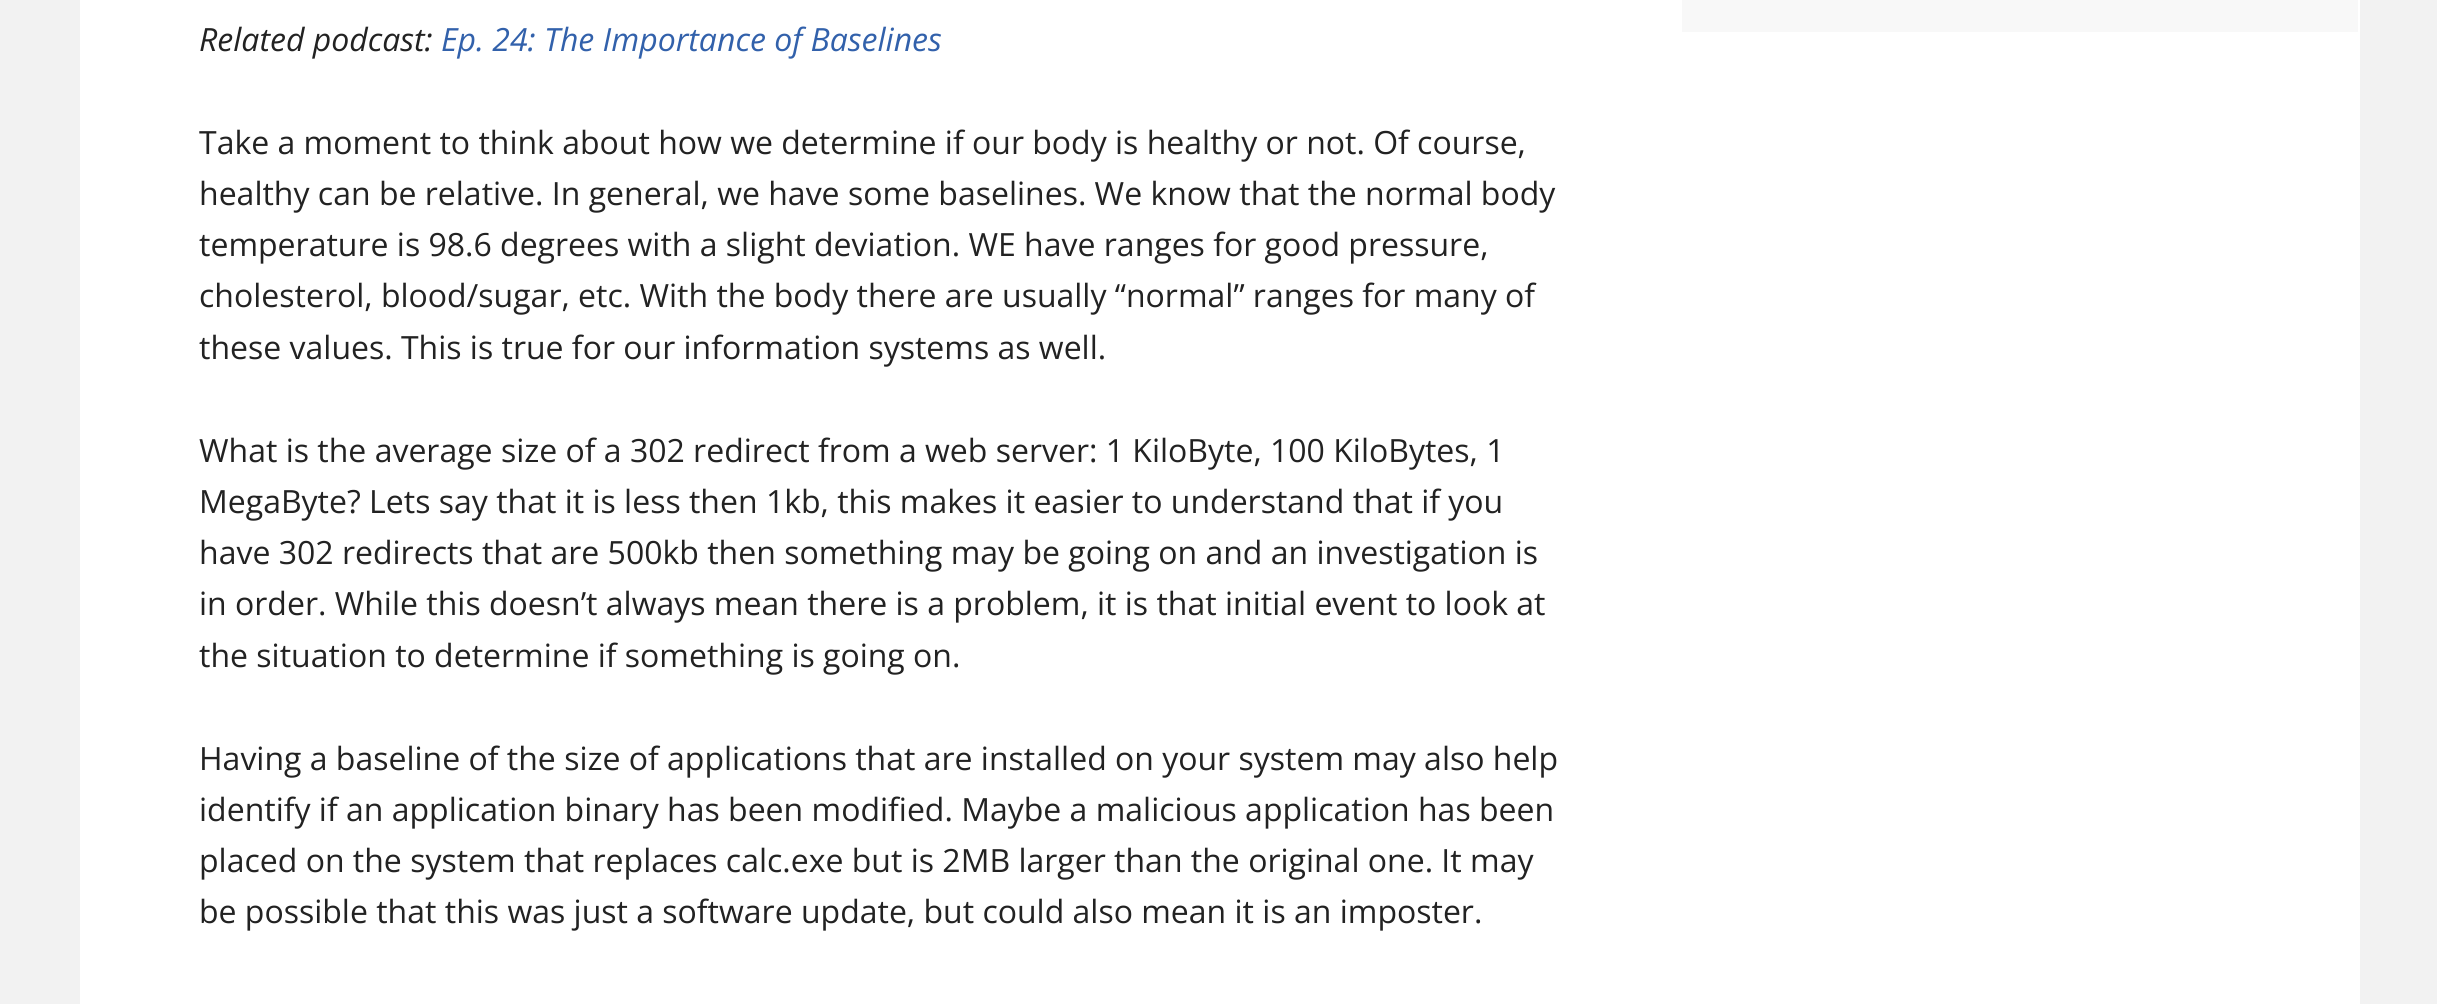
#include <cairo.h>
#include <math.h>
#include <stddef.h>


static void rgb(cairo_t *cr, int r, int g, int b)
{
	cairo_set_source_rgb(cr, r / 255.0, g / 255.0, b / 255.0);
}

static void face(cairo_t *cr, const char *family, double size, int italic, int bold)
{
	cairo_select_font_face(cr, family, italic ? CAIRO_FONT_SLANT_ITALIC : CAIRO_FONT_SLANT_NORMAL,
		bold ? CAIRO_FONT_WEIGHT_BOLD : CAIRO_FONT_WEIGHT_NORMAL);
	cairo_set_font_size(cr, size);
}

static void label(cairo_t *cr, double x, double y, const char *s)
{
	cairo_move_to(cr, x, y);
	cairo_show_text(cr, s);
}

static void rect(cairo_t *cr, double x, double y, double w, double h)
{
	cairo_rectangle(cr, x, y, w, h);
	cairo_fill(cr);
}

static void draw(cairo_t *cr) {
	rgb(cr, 242, 242, 242);
	cairo_paint(cr);
	rgb(cr, 255, 255, 255);
	rect(cr, 80, 0, 2280, 1004);
	rgb(cr, 248, 248, 248);
	rect(cr, 1682, 0, 676, 32);
	face(cr, "Open Sans", 32, 1, 0);
	rgb(cr, 34, 34, 34);
	label(cr, 199, 51, "Related podcast:");
	rgb(cr, 50, 97, 171);
	label(cr, 441, 51, "Ep. 24: The Importance of Baselines");
	face(cr, "Open Sans", 32, 0, 0);
	rgb(cr, 34, 34, 34);
	label(cr, 199, 154, "Take a moment to think about how we determine if our body is healthy or not. Of course,");
	label(cr, 199, 205, "healthy can be relative. In general, we have some baselines. We know that the normal body");
	label(cr, 199, 256, "temperature is 98.6 degrees with a slight deviation. WE have ranges for good pressure,");
	label(cr, 199, 307, "cholesterol, blood/sugar, etc. With the body there are usually “normal” ranges for many of");
	label(cr, 199, 359, "these values. This is true for our information systems as well.");
	label(cr, 199, 462, "What is the average size of a 302 redirect from a web server: 1 KiloByte, 100 KiloBytes, 1");
	label(cr, 199, 513, "MegaByte? Lets say that it is less then 1kb, this makes it easier to understand that if you");
	label(cr, 199, 564, "have 302 redirects that are 500kb then something may be going on and an investigation is");
	label(cr, 199, 615, "in order. While this doesn’t always mean there is a problem, it is that initial event to look at");
	label(cr, 199, 667, "the situation to determine if something is going on.");
	label(cr, 199, 770, "Having a baseline of the size of applications that are installed on your system may also help");
	label(cr, 199, 821, "identify if an application binary has been modified. Maybe a malicious application has been");
	label(cr, 199, 872, "placed on the system that replaces calc.exe but is 2MB larger than the original one. It may");
	label(cr, 199, 923, "be possible that this was just a software update, but could also mean it is an imposter.");
}

int main(void) {
	cairo_surface_t *surface = cairo_image_surface_create(CAIRO_FORMAT_RGB24, 2437, 1004);
	cairo_t *cr = cairo_create(surface);
	cairo_font_options_t *options = cairo_font_options_create();
	cairo_font_options_set_hint_metrics(options, CAIRO_HINT_METRICS_OFF);
	cairo_font_options_set_hint_style(options, CAIRO_HINT_STYLE_NONE);
	cairo_set_font_options(cr, options);
	cairo_set_miter_limit(cr, 4);
	draw(cr);
	cairo_surface_write_to_png(surface, "render.png");
	cairo_font_options_destroy(options);
	cairo_destroy(cr);
	cairo_surface_destroy(surface);
	return 0;
}
